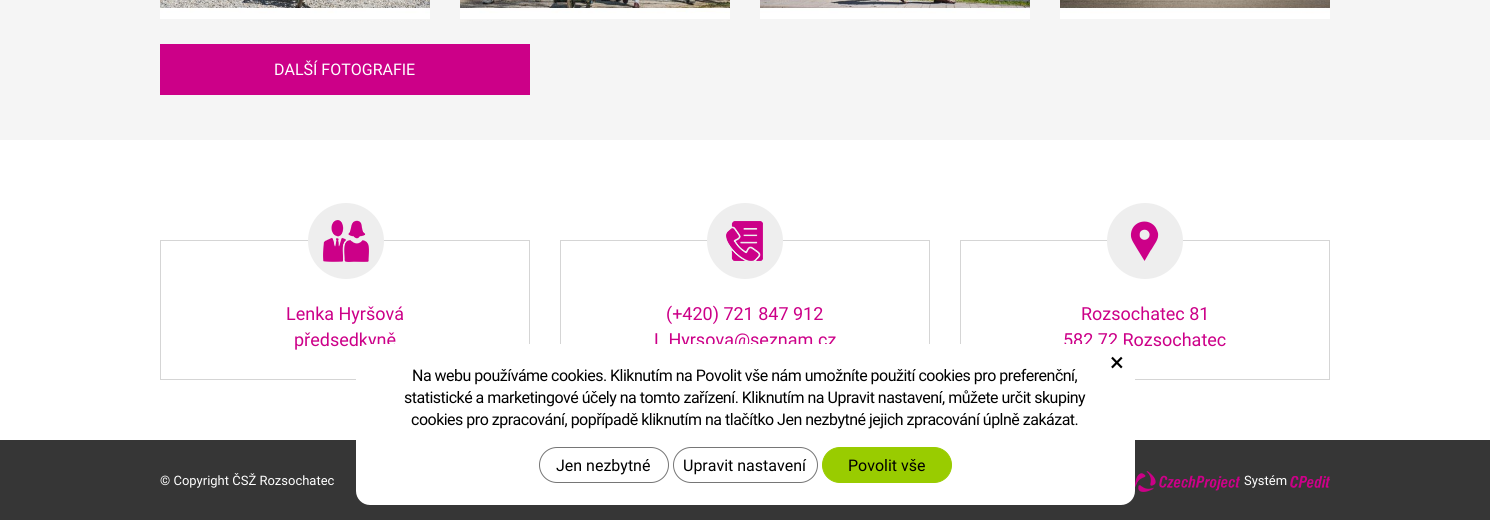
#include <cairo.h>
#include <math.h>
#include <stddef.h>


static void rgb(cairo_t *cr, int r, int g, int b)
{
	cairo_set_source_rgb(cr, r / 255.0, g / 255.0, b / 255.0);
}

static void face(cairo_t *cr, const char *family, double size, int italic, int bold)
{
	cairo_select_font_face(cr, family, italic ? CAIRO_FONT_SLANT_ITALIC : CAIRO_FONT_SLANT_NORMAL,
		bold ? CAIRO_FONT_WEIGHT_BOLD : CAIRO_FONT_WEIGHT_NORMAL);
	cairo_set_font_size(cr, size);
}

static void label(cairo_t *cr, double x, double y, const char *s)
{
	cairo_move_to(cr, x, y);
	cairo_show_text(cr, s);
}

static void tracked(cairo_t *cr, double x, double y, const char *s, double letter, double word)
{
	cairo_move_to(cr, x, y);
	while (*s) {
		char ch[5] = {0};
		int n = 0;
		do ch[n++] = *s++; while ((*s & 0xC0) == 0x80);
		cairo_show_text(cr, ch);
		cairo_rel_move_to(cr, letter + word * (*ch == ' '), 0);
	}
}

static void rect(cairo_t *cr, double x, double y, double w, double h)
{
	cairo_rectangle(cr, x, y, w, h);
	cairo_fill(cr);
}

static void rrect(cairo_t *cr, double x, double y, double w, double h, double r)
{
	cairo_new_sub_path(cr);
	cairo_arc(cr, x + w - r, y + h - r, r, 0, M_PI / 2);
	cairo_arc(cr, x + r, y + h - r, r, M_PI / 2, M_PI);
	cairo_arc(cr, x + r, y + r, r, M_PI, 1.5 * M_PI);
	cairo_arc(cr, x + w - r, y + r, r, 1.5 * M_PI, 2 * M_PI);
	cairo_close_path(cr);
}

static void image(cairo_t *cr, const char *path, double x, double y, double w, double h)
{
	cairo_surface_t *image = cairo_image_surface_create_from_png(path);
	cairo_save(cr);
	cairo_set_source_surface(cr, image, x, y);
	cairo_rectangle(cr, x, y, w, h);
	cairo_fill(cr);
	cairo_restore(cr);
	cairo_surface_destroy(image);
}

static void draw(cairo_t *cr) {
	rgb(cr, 255, 255, 255);
	cairo_paint(cr);
	rgb(cr, 245, 245, 245);
	rect(cr, 0, 0, 1490, 140);
	image(cr, "image0.png", 160, 0, 270, 19);
	image(cr, "image1.png", 460, 0, 270, 19);
	image(cr, "image2.png", 760, 0, 270, 19);
	image(cr, "image3.png", 1060, 0, 270, 19);
	rgb(cr, 204, 0, 136);
	rect(cr, 160, 44, 370, 51);
	face(cr, "Roboto", 16, 0, 0);
	rgb(cr, 255, 255, 255);
	label(cr, 274, 75, "DALŠÍ FOTOGRAFIE");
	cairo_rectangle(cr, 160.5, 240.5, 369, 139);
	rgb(cr, 213, 213, 213);
	cairo_set_line_width(cr, 1);
	cairo_stroke(cr);
	image(cr, "image4.png", 308, 203, 76, 76);
	face(cr, "Roboto", 18, 0, 0);
	rgb(cr, 204, 0, 136);
	label(cr, 286, 320, "Lenka Hyršová");
	label(cr, 294, 346, "předsedkyně");
	cairo_rectangle(cr, 560.5, 240.5, 369, 139);
	rgb(cr, 213, 213, 213);
	cairo_stroke(cr);
	image(cr, "image5.png", 707, 203, 76, 76);
	rgb(cr, 204, 0, 136);
	label(cr, 666, 320, "(+420) 721 847 912");
	label(cr, 654, 346, "L.Hyrsova@seznam.cz");
	cairo_rectangle(cr, 960.5, 240.5, 369, 139);
	rgb(cr, 213, 213, 213);
	cairo_stroke(cr);
	image(cr, "image6.png", 1107, 203, 76, 76);
	rgb(cr, 204, 0, 136);
	label(cr, 1081, 320, "Rozsochatec 81");
	label(cr, 1063, 346, "582 72 Rozsochatec");
	rgb(cr, 54, 54, 54);
	rect(cr, 0, 440, 1490, 80);
	rgb(cr, 255, 255, 255);
	rrect(cr, 356, 344, 779, 161, 14);
	cairo_fill(cr);
	face(cr, "Roboto", 26, 0, 0);
	rgb(cr, 0, 0, 0);
	label(cr, 1110, 371, "×");
	face(cr, "Roboto", 16, 0, 0);
	tracked(cr, 412, 381, "Na webu používáme cookies. Kliknutím na Povolit vše nám umožníte použití cookies pro preferenční,", -0.5, 0);
	tracked(cr, 404, 403, "statistické a marketingové účely na tomto zařízení. Kliknutím na Upravit nastavení, můžete určit skupiny", -0.5, 0);
	tracked(cr, 411, 425, "cookies pro zpracování, popřípadě kliknutím na tlačítko Jen nezbytné jejich zpracování úplně zakázat.", -0.5, 0);
	rrect(cr, 539.5, 447.5, 129, 35, 17.5);
	rgb(cr, 118, 118, 118);
	cairo_stroke(cr);
	rgb(cr, 0, 0, 0);
	label(cr, 556, 471, "Jen nezbytné");
	rrect(cr, 673.5, 447.5, 144, 35, 17.5);
	rgb(cr, 118, 118, 118);
	cairo_stroke(cr);
	rgb(cr, 0, 0, 0);
	label(cr, 683, 471, "Upravit nastavení");
	rgb(cr, 153, 204, 0);
	rrect(cr, 822.5, 447.5, 129, 35, 17.5);
	cairo_fill_preserve(cr);
	cairo_stroke(cr);
	rgb(cr, 0, 0, 0);
	label(cr, 848, 471, "Povolit vše");
	face(cr, "Roboto", 13, 0, 0);
	rgb(cr, 255, 255, 255);
	label(cr, 160, 485, "© Copyright ČSŽ Rozsochatec");
	image(cr, "image7.png", 1135, 471, 105, 21);
	label(cr, 1244, 485, "Systém");
	image(cr, "image8.png", 1290, 476, 40, 12);
}

int main(void) {
	cairo_surface_t *surface = cairo_image_surface_create(CAIRO_FORMAT_RGB24, 1490, 520);
	cairo_t *cr = cairo_create(surface);
	cairo_font_options_t *options = cairo_font_options_create();
	cairo_font_options_set_hint_metrics(options, CAIRO_HINT_METRICS_OFF);
	cairo_font_options_set_hint_style(options, CAIRO_HINT_STYLE_NONE);
	cairo_set_font_options(cr, options);
	cairo_set_miter_limit(cr, 4);
	draw(cr);
	cairo_surface_write_to_png(surface, "render.png");
	cairo_font_options_destroy(options);
	cairo_destroy(cr);
	cairo_surface_destroy(surface);
	return 0;
}
